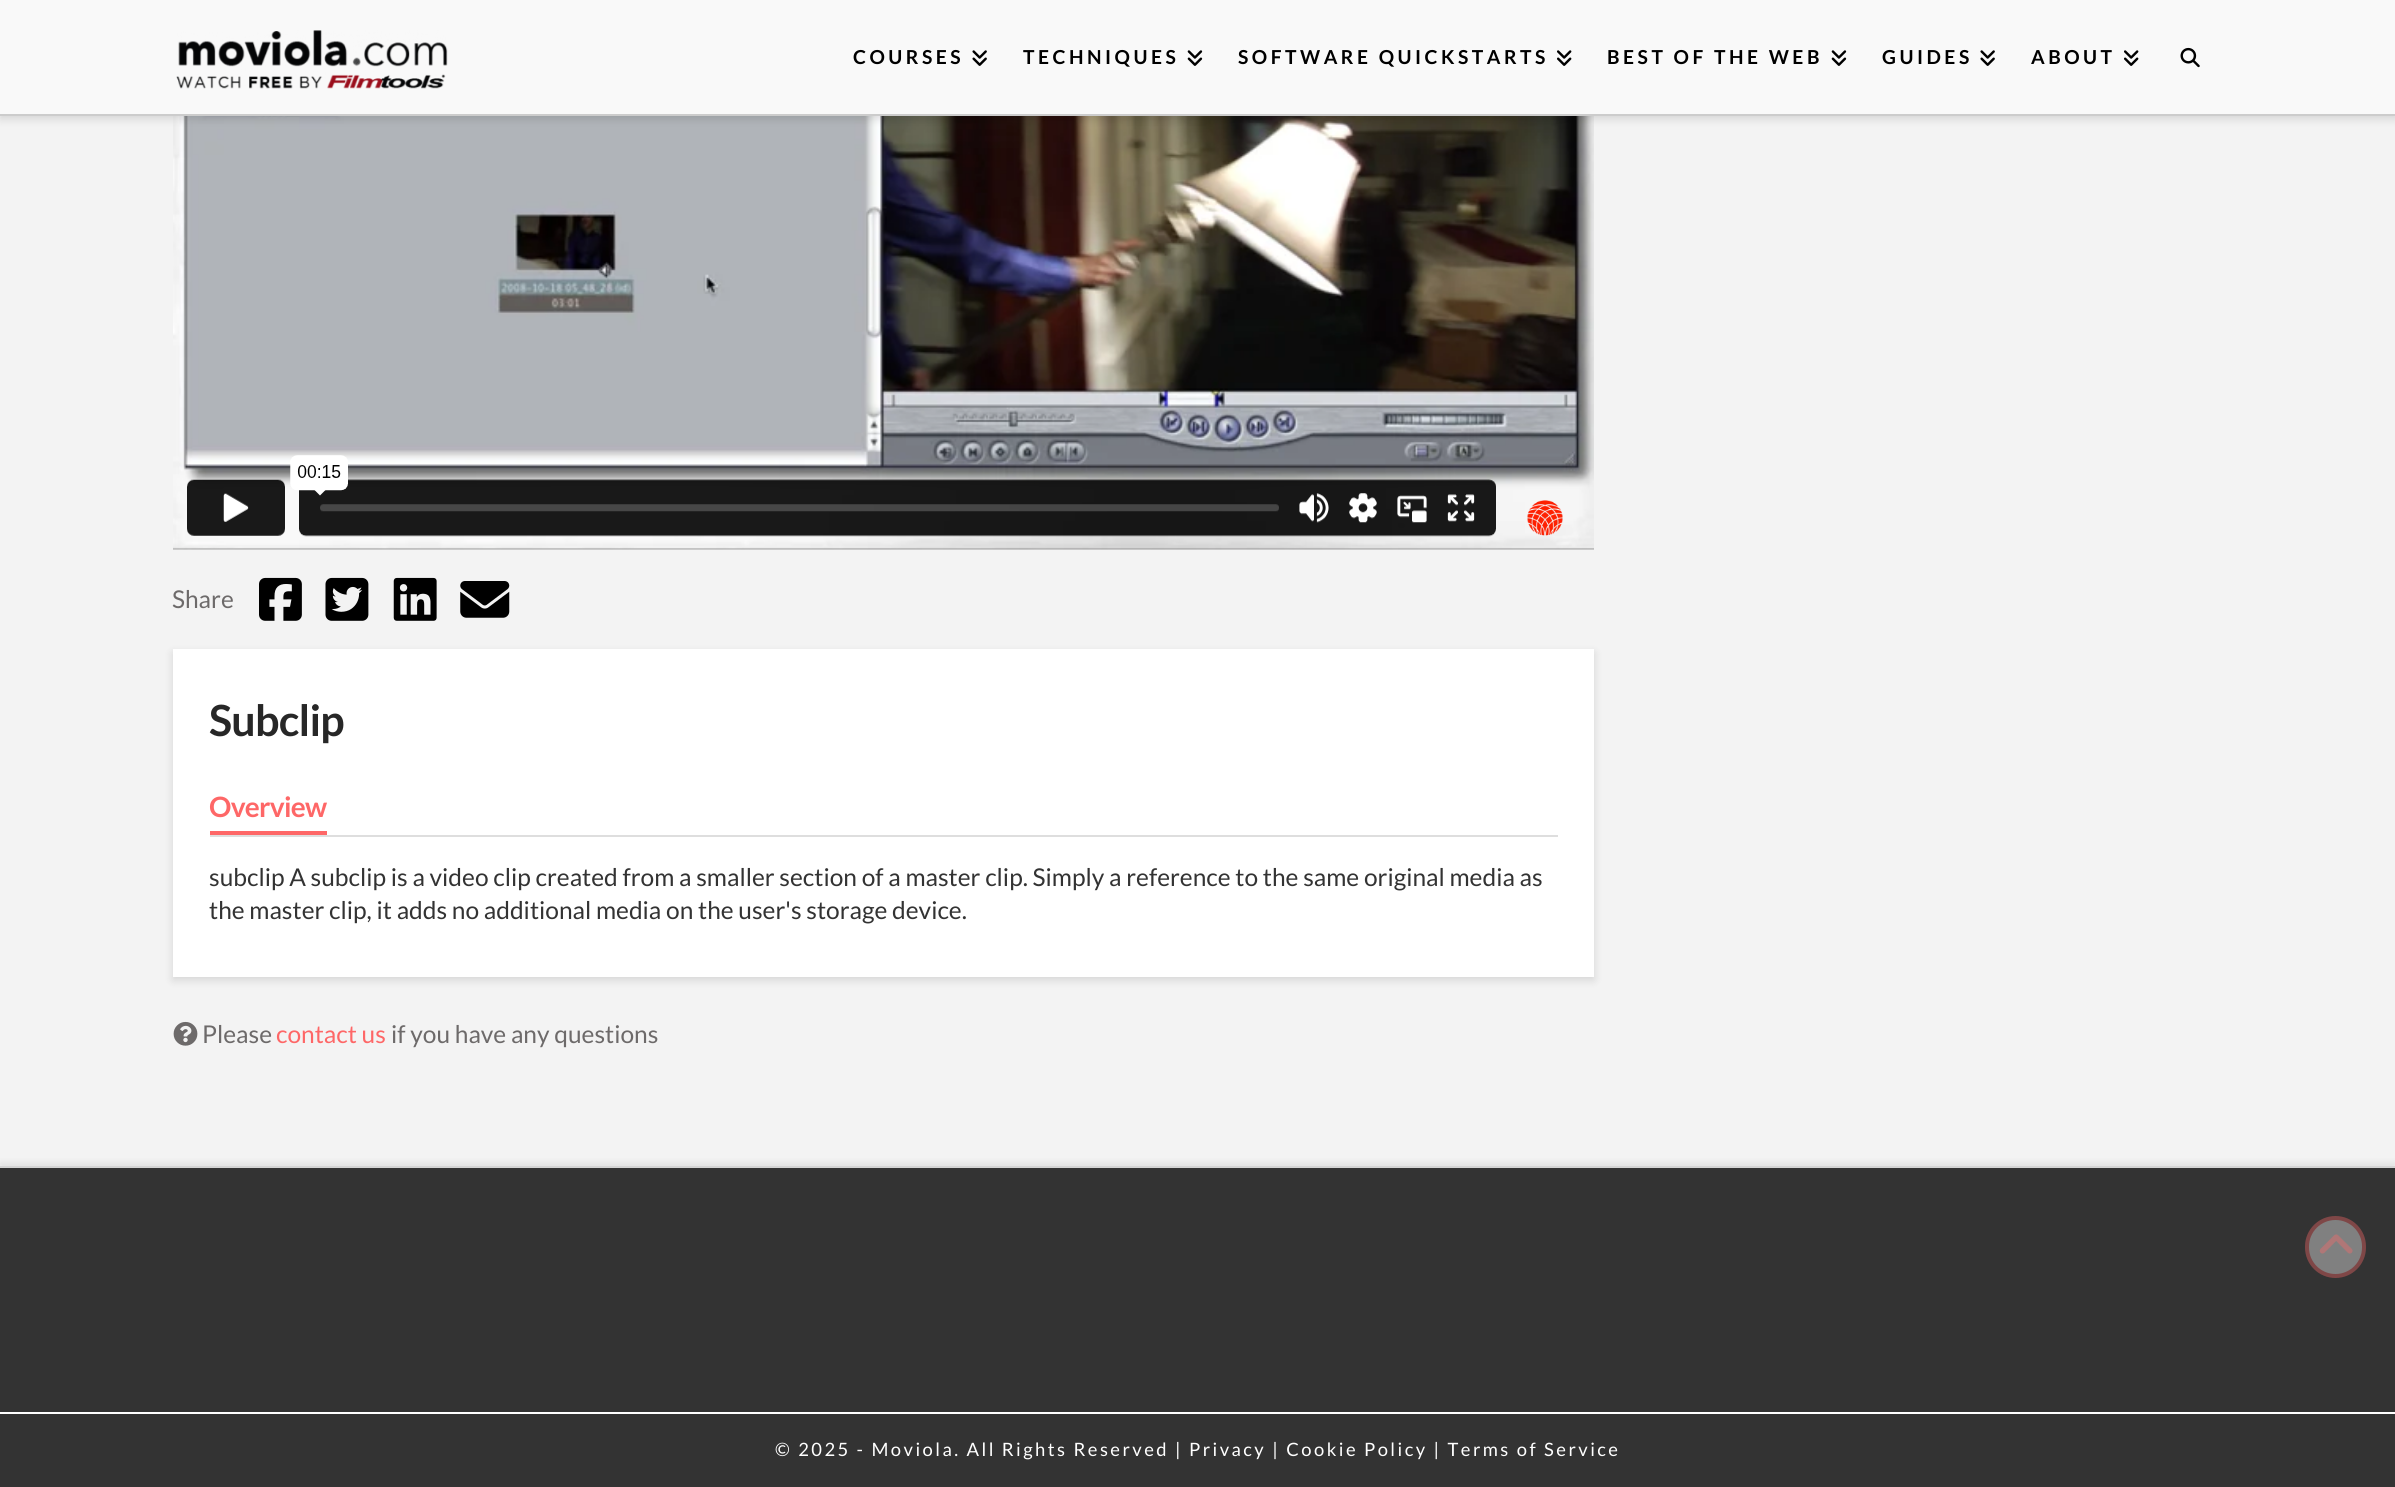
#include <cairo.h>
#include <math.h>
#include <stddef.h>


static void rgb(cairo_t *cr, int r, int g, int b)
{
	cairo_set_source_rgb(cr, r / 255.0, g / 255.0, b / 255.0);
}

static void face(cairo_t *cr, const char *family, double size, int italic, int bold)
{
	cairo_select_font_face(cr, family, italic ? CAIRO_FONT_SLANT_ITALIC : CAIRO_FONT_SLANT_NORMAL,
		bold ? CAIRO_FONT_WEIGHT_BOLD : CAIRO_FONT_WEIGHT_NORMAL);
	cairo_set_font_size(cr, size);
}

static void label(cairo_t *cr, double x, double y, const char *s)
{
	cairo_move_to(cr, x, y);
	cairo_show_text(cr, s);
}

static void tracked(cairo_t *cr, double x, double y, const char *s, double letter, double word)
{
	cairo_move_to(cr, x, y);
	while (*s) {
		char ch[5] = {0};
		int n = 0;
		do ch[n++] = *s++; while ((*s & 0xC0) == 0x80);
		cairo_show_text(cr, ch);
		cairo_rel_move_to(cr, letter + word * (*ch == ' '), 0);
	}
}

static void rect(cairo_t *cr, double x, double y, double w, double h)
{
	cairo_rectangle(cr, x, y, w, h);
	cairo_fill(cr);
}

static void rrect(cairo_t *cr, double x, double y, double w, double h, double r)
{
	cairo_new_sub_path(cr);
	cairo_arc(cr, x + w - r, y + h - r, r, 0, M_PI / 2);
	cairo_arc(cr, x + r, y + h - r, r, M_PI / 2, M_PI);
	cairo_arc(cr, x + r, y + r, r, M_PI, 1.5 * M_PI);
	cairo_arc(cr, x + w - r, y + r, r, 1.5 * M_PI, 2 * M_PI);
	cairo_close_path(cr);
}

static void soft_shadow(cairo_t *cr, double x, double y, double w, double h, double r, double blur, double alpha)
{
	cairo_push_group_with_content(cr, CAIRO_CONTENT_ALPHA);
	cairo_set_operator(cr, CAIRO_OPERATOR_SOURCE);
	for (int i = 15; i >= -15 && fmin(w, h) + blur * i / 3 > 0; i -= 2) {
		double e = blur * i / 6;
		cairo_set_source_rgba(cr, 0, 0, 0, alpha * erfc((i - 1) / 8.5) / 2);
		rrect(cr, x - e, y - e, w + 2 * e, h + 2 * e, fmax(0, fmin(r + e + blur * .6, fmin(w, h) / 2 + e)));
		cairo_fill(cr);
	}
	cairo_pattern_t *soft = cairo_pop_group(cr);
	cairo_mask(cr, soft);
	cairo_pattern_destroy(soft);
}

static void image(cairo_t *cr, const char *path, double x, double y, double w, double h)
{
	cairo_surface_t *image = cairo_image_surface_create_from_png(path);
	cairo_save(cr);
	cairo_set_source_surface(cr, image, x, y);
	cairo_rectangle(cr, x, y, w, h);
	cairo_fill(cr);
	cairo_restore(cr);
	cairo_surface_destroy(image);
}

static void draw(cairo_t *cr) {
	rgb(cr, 243, 243, 243);
	cairo_paint(cr);
	image(cr, "image5.png", 173, 116, 1421, 434);
	rgb(cr, 0, 0, 0);
	soft_shadow(cr, 0, 4, 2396, 115, 0, 4.5, 0.13);
	rgb(cr, 249, 249, 249);
	rect(cr, 0, 0, 2395, 114);
	rgb(cr, 204, 204, 204);
	rect(cr, 0, 114, 2395, 2);
	image(cr, "image0.png", 176, 30, 272, 59);
	face(cr, "Lato", 19.25, 0, 1);
	rgb(cr, 0, 0, 0);
	tracked(cr, 853, 64, "COURSES", 3.5, 0);
	image(cr, "image1.png", 972, 50, 15, 16);
	tracked(cr, 1023, 64, "TECHNIQUES", 3.5, 0);
	image(cr, "image2.png", 1187, 50, 16, 16);
	tracked(cr, 1238, 64, "SOFTWARE QUICKSTARTS", 3.5, 0);
	image(cr, "image3.png", 1557, 50, 15, 16);
	tracked(cr, 1607, 64, "BEST OF THE WEB", 3.5, 0);
	image(cr, "image2.png", 1831, 50, 16, 16);
	tracked(cr, 1882, 64, "GUIDES", 3.5, 0);
	image(cr, "image1.png", 1980, 50, 15, 16);
	tracked(cr, 2031, 64, "ABOUT", 3.5, 0);
	image(cr, "image3.png", 2124, 50, 15, 16);
	image(cr, "image4.png", 2180, 47, 20, 21);
	face(cr, "Lato", 24.5, 0, 0);
	rgb(cr, 109, 106, 106);
	label(cr, 172, 608, "Share");
	image(cr, "image6.png", 259, 577, 43, 44);
	image(cr, "image7.png", 325, 577, 44, 44);
	image(cr, "image8.png", 393, 577, 44, 44);
	image(cr, "image9.png", 460, 581, 50, 37);
	rgb(cr, 0, 0, 0);
	soft_shadow(cr, 173, 653, 1421, 327, 0, 4.5, 0.13);
	rgb(cr, 255, 255, 255);
	rect(cr, 173, 649, 1421, 328);
	face(cr, "Lato", 43, 0, 1);
	rgb(cr, 39, 39, 39);
	tracked(cr, 209, 736, "Subclip", -0.75, 0);
	rgb(cr, 222, 222, 222);
	rect(cr, 210, 835, 1348, 2);
	face(cr, "Lato", 28, 0, 1);
	rgb(cr, 254, 103, 103);
	tracked(cr, 209, 817, "Overview", -0.75, 0);
	rect(cr, 210, 831, 117, 4);
	face(cr, "Lato", 24.5, 0, 0);
	rgb(cr, 51, 51, 51);
	label(cr, 209, 886, "subclip A subclip is a video clip created from a smaller section of a master clip. Simply a reference to the same original media as");
	label(cr, 209, 919, "the master clip, it adds no additional media on the user's storage device.");
	image(cr, "image10.png", 173, 1021, 25, 25);
	rgb(cr, 109, 106, 106);
	label(cr, 202, 1043, "Please");
	rgb(cr, 254, 103, 103);
	label(cr, 276, 1043, "contact us");
	rgb(cr, 109, 106, 106);
	label(cr, 391, 1043, "if you have any questions");
	rgb(cr, 0, 0, 0);
	soft_shadow(cr, 0, 1162, 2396, 247, 0, 3, 0.07);
	rgb(cr, 51, 51, 51);
	rect(cr, 0, 1168, 2395, 244);
	rgb(cr, 212, 212, 212);
	rect(cr, 0, 1166, 2395, 2);
	rgb(cr, 51, 51, 51);
	rect(cr, 0, 1414, 2395, 73);
	rgb(cr, 255, 255, 255);
	rect(cr, 0, 1412, 2395, 2);
	face(cr, "Lato", 18.4, 0, 0);
	tracked(cr, 775, 1456, "© 2025 - Moviola. All Rights Reserved | Privacy | Cookie Policy | Terms of Service", 2.45, 0);
	rgb(cr, 128, 128, 128);
	rrect(cr, 2307, 1218, 57, 58, 28.5);
	cairo_fill_preserve(cr);
	rgb(cr, 127, 71, 71);
	cairo_set_line_width(cr, 4);
	cairo_stroke(cr);
	image(cr, "image11.png", 2319, 1234, 34, 20);
}

int main(void) {
	cairo_surface_t *surface = cairo_image_surface_create(CAIRO_FORMAT_RGB24, 2395, 1487);
	cairo_t *cr = cairo_create(surface);
	cairo_font_options_t *options = cairo_font_options_create();
	cairo_font_options_set_hint_metrics(options, CAIRO_HINT_METRICS_OFF);
	cairo_font_options_set_hint_style(options, CAIRO_HINT_STYLE_NONE);
	cairo_set_font_options(cr, options);
	cairo_set_miter_limit(cr, 4);
	draw(cr);
	cairo_surface_write_to_png(surface, "render.png");
	cairo_font_options_destroy(options);
	cairo_destroy(cr);
	cairo_surface_destroy(surface);
	return 0;
}
